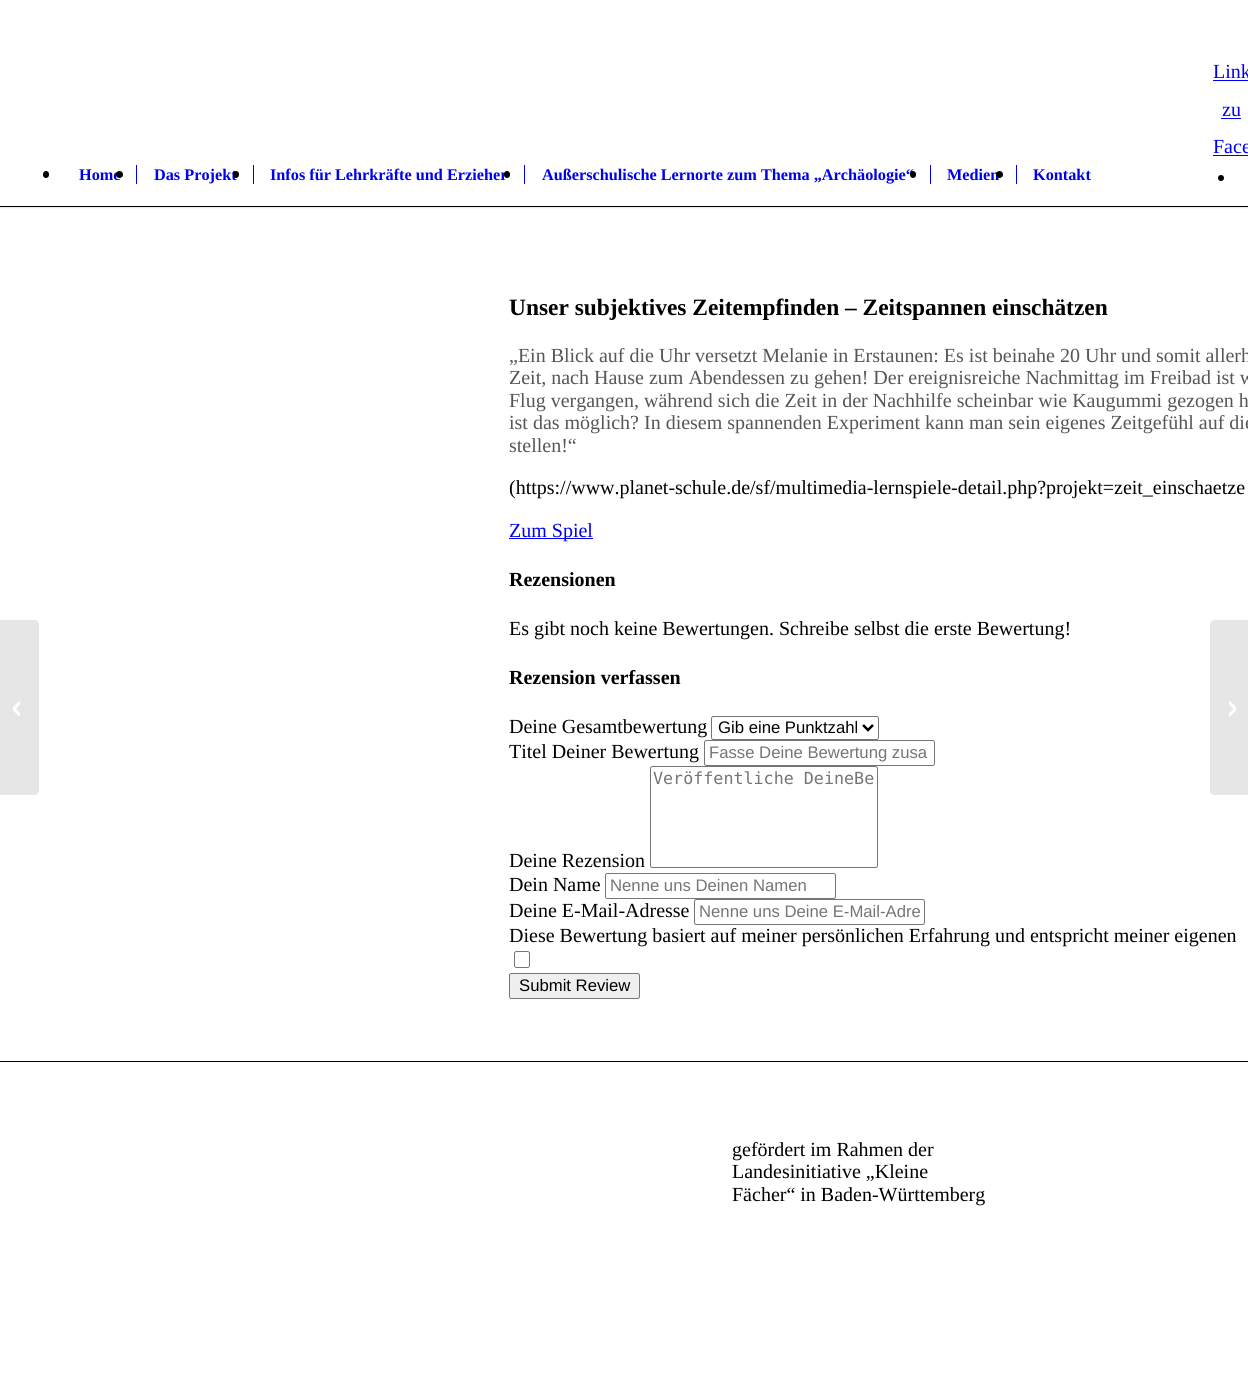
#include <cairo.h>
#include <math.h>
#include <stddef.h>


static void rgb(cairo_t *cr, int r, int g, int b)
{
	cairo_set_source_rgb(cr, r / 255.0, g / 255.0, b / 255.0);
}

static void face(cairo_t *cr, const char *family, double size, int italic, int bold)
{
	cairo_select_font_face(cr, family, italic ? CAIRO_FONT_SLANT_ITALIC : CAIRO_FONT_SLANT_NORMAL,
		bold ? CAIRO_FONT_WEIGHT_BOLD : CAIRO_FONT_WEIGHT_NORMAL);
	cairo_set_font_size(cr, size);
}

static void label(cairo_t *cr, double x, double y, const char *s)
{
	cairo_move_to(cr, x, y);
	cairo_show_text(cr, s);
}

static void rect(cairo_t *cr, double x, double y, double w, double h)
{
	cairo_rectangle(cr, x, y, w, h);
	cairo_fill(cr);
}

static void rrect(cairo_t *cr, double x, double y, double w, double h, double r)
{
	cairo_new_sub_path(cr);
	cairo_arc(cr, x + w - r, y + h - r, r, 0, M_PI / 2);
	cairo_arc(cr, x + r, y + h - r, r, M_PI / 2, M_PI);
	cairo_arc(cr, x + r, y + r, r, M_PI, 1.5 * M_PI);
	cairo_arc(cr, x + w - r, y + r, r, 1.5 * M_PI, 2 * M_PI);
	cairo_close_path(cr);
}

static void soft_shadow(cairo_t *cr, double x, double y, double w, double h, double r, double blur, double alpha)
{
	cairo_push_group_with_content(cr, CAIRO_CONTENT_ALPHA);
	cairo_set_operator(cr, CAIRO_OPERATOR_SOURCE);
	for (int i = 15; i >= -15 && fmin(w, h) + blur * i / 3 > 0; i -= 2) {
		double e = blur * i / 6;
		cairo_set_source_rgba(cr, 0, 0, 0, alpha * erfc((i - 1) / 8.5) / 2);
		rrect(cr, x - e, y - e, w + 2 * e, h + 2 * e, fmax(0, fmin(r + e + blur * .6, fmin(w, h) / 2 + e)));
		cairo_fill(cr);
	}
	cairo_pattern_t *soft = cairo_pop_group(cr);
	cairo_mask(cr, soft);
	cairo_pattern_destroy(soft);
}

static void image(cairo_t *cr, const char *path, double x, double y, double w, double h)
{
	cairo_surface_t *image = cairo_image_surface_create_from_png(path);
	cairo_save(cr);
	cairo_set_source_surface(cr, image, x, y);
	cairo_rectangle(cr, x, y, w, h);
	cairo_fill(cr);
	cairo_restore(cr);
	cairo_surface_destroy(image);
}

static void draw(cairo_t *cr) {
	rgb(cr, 255, 255, 255);
	cairo_paint(cr);
	rgb(cr, 0, 0, 0);
	rect(cr, 0, 206, 1248, 1);
	cairo_save(cr);
	cairo_rectangle(cr, 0, 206, 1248, 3);
	cairo_clip(cr);
	rgb(cr, 0, 0, 0);
	soft_shadow(cr, -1, -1, 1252, 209, 0, 1, 0.1);
	cairo_restore(cr);
	face(cr, "Liberation Serif", 20, 0, 0);
	rgb(cr, 0, 0, 238);
	label(cr, 1213, 78, "Link");
	rect(cr, 1213, 80, 35, 1);
	label(cr, 1222, 116, "zu");
	rect(cr, 1221, 118, 20, 1);
	label(cr, 1213, 153, "Face");
	rect(cr, 1213, 155, 35, 1);
	rgb(cr, 0, 0, 0);
	rrect(cr, 43, 171, 6, 7, 3);
	cairo_fill(cr);
	face(cr, "Liberation Serif", 16.25, 0, 1);
	rgb(cr, 0, 0, 238);
	label(cr, 79, 180, "Home");
	rgb(cr, 0, 0, 0);
	cairo_new_path(cr);
	cairo_arc(cr, 119.5, 174.5, 3.5, 0, 2 * M_PI);
	cairo_fill(cr);
	rgb(cr, 0, 0, 238);
	label(cr, 154, 180, "Das Projekt");
	rect(cr, 136, 165, 1, 19);
	rgb(cr, 0, 0, 0);
	rrect(cr, 233, 171, 6, 7, 3);
	cairo_fill(cr);
	rgb(cr, 0, 0, 238);
	label(cr, 270, 180, "Infos für Lehrkräfte und Erzieher");
	rect(cr, 253, 165, 1, 19);
	rgb(cr, 0, 0, 0);
	rrect(cr, 504, 171, 6, 7, 3);
	cairo_fill(cr);
	rgb(cr, 0, 0, 238);
	label(cr, 542, 180, "Außerschulische Lernorte zum Thema „Archäologie“");
	rect(cr, 524, 165, 1, 19);
	rgb(cr, 0, 0, 0);
	rrect(cr, 910, 171, 6, 7, 3);
	cairo_fill(cr);
	rgb(cr, 0, 0, 238);
	label(cr, 947, 180, "Medien");
	rect(cr, 930, 165, 1, 19);
	rgb(cr, 0, 0, 0);
	cairo_new_path(cr);
	cairo_arc(cr, 999.5, 174.5, 3.5, 0, 2 * M_PI);
	cairo_fill(cr);
	rgb(cr, 0, 0, 238);
	label(cr, 1033, 180, "Kontakt");
	rect(cr, 1016, 165, 1, 19);
	rgb(cr, 0, 0, 0);
	cairo_new_path(cr);
	cairo_arc(cr, 1221, 178, 3, 0, 2 * M_PI);
	cairo_fill(cr);
	rgb(cr, 230, 230, 230);
	cairo_new_path(cr);
	cairo_move_to(cr, 0, 620);
	cairo_line_to(cr, 34, 620);
	cairo_curve_to(cr, 37, 620, 39, 622, 39, 625);
	cairo_line_to(cr, 39, 790);
	cairo_curve_to(cr, 39, 793, 37, 795, 34, 795);
	cairo_line_to(cr, 0, 795);
	cairo_close_path(cr);
	cairo_fill(cr);
	image(cr, "image0.png", 13, 701, 7, 15);
	face(cr, "Liberation Serif", 23.4, 0, 1);
	rgb(cr, 0, 0, 0);
	label(cr, 509, 315, "Unser subjektives Zeitempfinden – Zeitspannen einschätzen");
	face(cr, "Liberation Serif", 20, 0, 0);
	rgb(cr, 86, 86, 85);
	label(cr, 509, 362, "„Ein Blick auf die Uhr versetzt Melanie in Erstaunen: Es ist beinahe 20 Uhr und somit allerh");
	label(cr, 509, 384, "Zeit, nach Hause zum Abendessen zu gehen! Der ereignisreiche Nachmittag im Freibad ist w");
	label(cr, 509, 407, "Flug vergangen, während sich die Zeit in der Nachhilfe scheinbar wie Kaugummi gezogen h");
	label(cr, 509, 429, "ist das möglich? In diesem spannenden Experiment kann man sein eigenes Zeitgefühl auf die");
	label(cr, 509, 452, "stellen!“");
	rgb(cr, 0, 0, 0);
	label(cr, 509, 494, "(https://www.planet-schule.de/sf/multimedia-lernspiele-detail.php?projekt=zeit_einschaetze");
	rgb(cr, 0, 0, 238);
	rect(cr, 509, 538, 84, 1);
	label(cr, 509, 537, "Zum Spiel");
	face(cr, "Liberation Serif", 20, 0, 1);
	rgb(cr, 0, 0, 0);
	label(cr, 509, 586, "Rezensionen");
	face(cr, "Liberation Serif", 20, 0, 0);
	label(cr, 509, 635, "Es gibt noch keine Bewertungen. Schreibe selbst die erste Bewertung!");
	face(cr, "Liberation Serif", 20, 0, 1);
	label(cr, 509, 684, "Rezension verfassen");
	face(cr, "Liberation Serif", 20, 0, 0);
	label(cr, 509, 733, "Deine Gesamtbewertung");
	rrect(cr, 711.5, 716.5, 167, 23, 2);
	rgb(cr, 118, 118, 118);
	cairo_set_line_width(cr, 1);
	cairo_stroke(cr);
	cairo_new_path(cr);
	cairo_move_to(cr, 863, 725);
	cairo_line_to(cr, 868, 730);
	cairo_line_to(cr, 873, 725);
	rgb(cr, 0, 0, 0);
	cairo_set_line_width(cr, 2.5);
	cairo_stroke(cr);
	face(cr, "Liberation Sans", 16.7, 0, 0);
	label(cr, 718, 733, "Gib eine Punktzahl");
	face(cr, "Liberation Serif", 20, 0, 0);
	label(cr, 509, 758, "Titel Deiner Bewertung");
	rrect(cr, 704.5, 740.5, 230, 25, 2);
	rgb(cr, 118, 118, 118);
	cairo_set_line_width(cr, 1);
	cairo_stroke(cr);
	face(cr, "Liberation Sans", 16.7, 0, 0);
	rgb(cr, 117, 117, 117);
	label(cr, 709, 758, "Fasse Deine Bewertung zusa");
	rrect(cr, 650.5, 766.5, 227, 101, 2);
	rgb(cr, 118, 118, 118);
	cairo_stroke(cr);
	face(cr, "DejaVu Sans Mono", 16.7, 0, 0);
	rgb(cr, 117, 117, 117);
	label(cr, 653, 784, "Veröffentliche DeineBe");
	face(cr, "Liberation Serif", 20, 0, 0);
	rgb(cr, 0, 0, 0);
	label(cr, 509, 867, "Deine Rezension");
	label(cr, 509, 891, "Dein Name");
	rrect(cr, 605.5, 873.5, 230, 25, 2);
	rgb(cr, 118, 118, 118);
	cairo_stroke(cr);
	face(cr, "Liberation Sans", 16.7, 0, 0);
	rgb(cr, 117, 117, 117);
	label(cr, 610, 891, "Nenne uns Deinen Namen");
	face(cr, "Liberation Serif", 20, 0, 0);
	rgb(cr, 0, 0, 0);
	label(cr, 509, 917, "Deine E-Mail-Adresse");
	rrect(cr, 694.5, 899.5, 230, 25, 2);
	rgb(cr, 118, 118, 118);
	cairo_stroke(cr);
	face(cr, "Liberation Sans", 16.7, 0, 0);
	rgb(cr, 117, 117, 117);
	label(cr, 699, 917, "Nenne uns Deine E-Mail-Adre");
	face(cr, "Liberation Serif", 20, 0, 0);
	rgb(cr, 0, 0, 0);
	label(cr, 509, 942, "Diese Bewertung basiert auf meiner persönlichen Erfahrung und entspricht meiner eigenen");
	rrect(cr, 514.5, 951.5, 15, 16, 2);
	rgb(cr, 118, 118, 118);
	cairo_stroke(cr);
	rgb(cr, 239, 239, 239);
	rrect(cr, 509.5, 973.5, 130, 25, 2);
	cairo_fill_preserve(cr);
	rgb(cr, 118, 118, 118);
	cairo_stroke(cr);
	face(cr, "Liberation Sans", 16.7, 0, 0);
	rgb(cr, 0, 0, 0);
	label(cr, 519, 991, "Submit Review");
	rect(cr, 0, 1061, 1248, 1);
	face(cr, "Liberation Serif", 20, 0, 0);
	label(cr, 732, 1156, "gefördert im Rahmen der");
	label(cr, 732, 1178, "Landesinitiative „Kleine");
	label(cr, 732, 1201, "Fächer“ in Baden-Württemberg");
	rgb(cr, 230, 230, 230);
	cairo_new_path(cr);
	cairo_move_to(cr, 1215, 620);
	cairo_line_to(cr, 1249, 620);
	cairo_line_to(cr, 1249, 795);
	cairo_line_to(cr, 1215, 795);
	cairo_curve_to(cr, 1212, 795, 1210, 793, 1210, 790);
	cairo_line_to(cr, 1210, 625);
	cairo_curve_to(cr, 1210, 622, 1212, 620, 1215, 620);
	cairo_close_path(cr);
	cairo_fill(cr);
	image(cr, "image1.png", 1229, 701, 7, 15);
}

int main(void) {
	cairo_surface_t *surface = cairo_image_surface_create(CAIRO_FORMAT_RGB24, 1248, 1376);
	cairo_t *cr = cairo_create(surface);
	cairo_font_options_t *options = cairo_font_options_create();
	cairo_font_options_set_hint_metrics(options, CAIRO_HINT_METRICS_OFF);
	cairo_font_options_set_hint_style(options, CAIRO_HINT_STYLE_NONE);
	cairo_set_font_options(cr, options);
	cairo_set_miter_limit(cr, 4);
	draw(cr);
	cairo_surface_write_to_png(surface, "render.png");
	cairo_font_options_destroy(options);
	cairo_destroy(cr);
	cairo_surface_destroy(surface);
	return 0;
}
